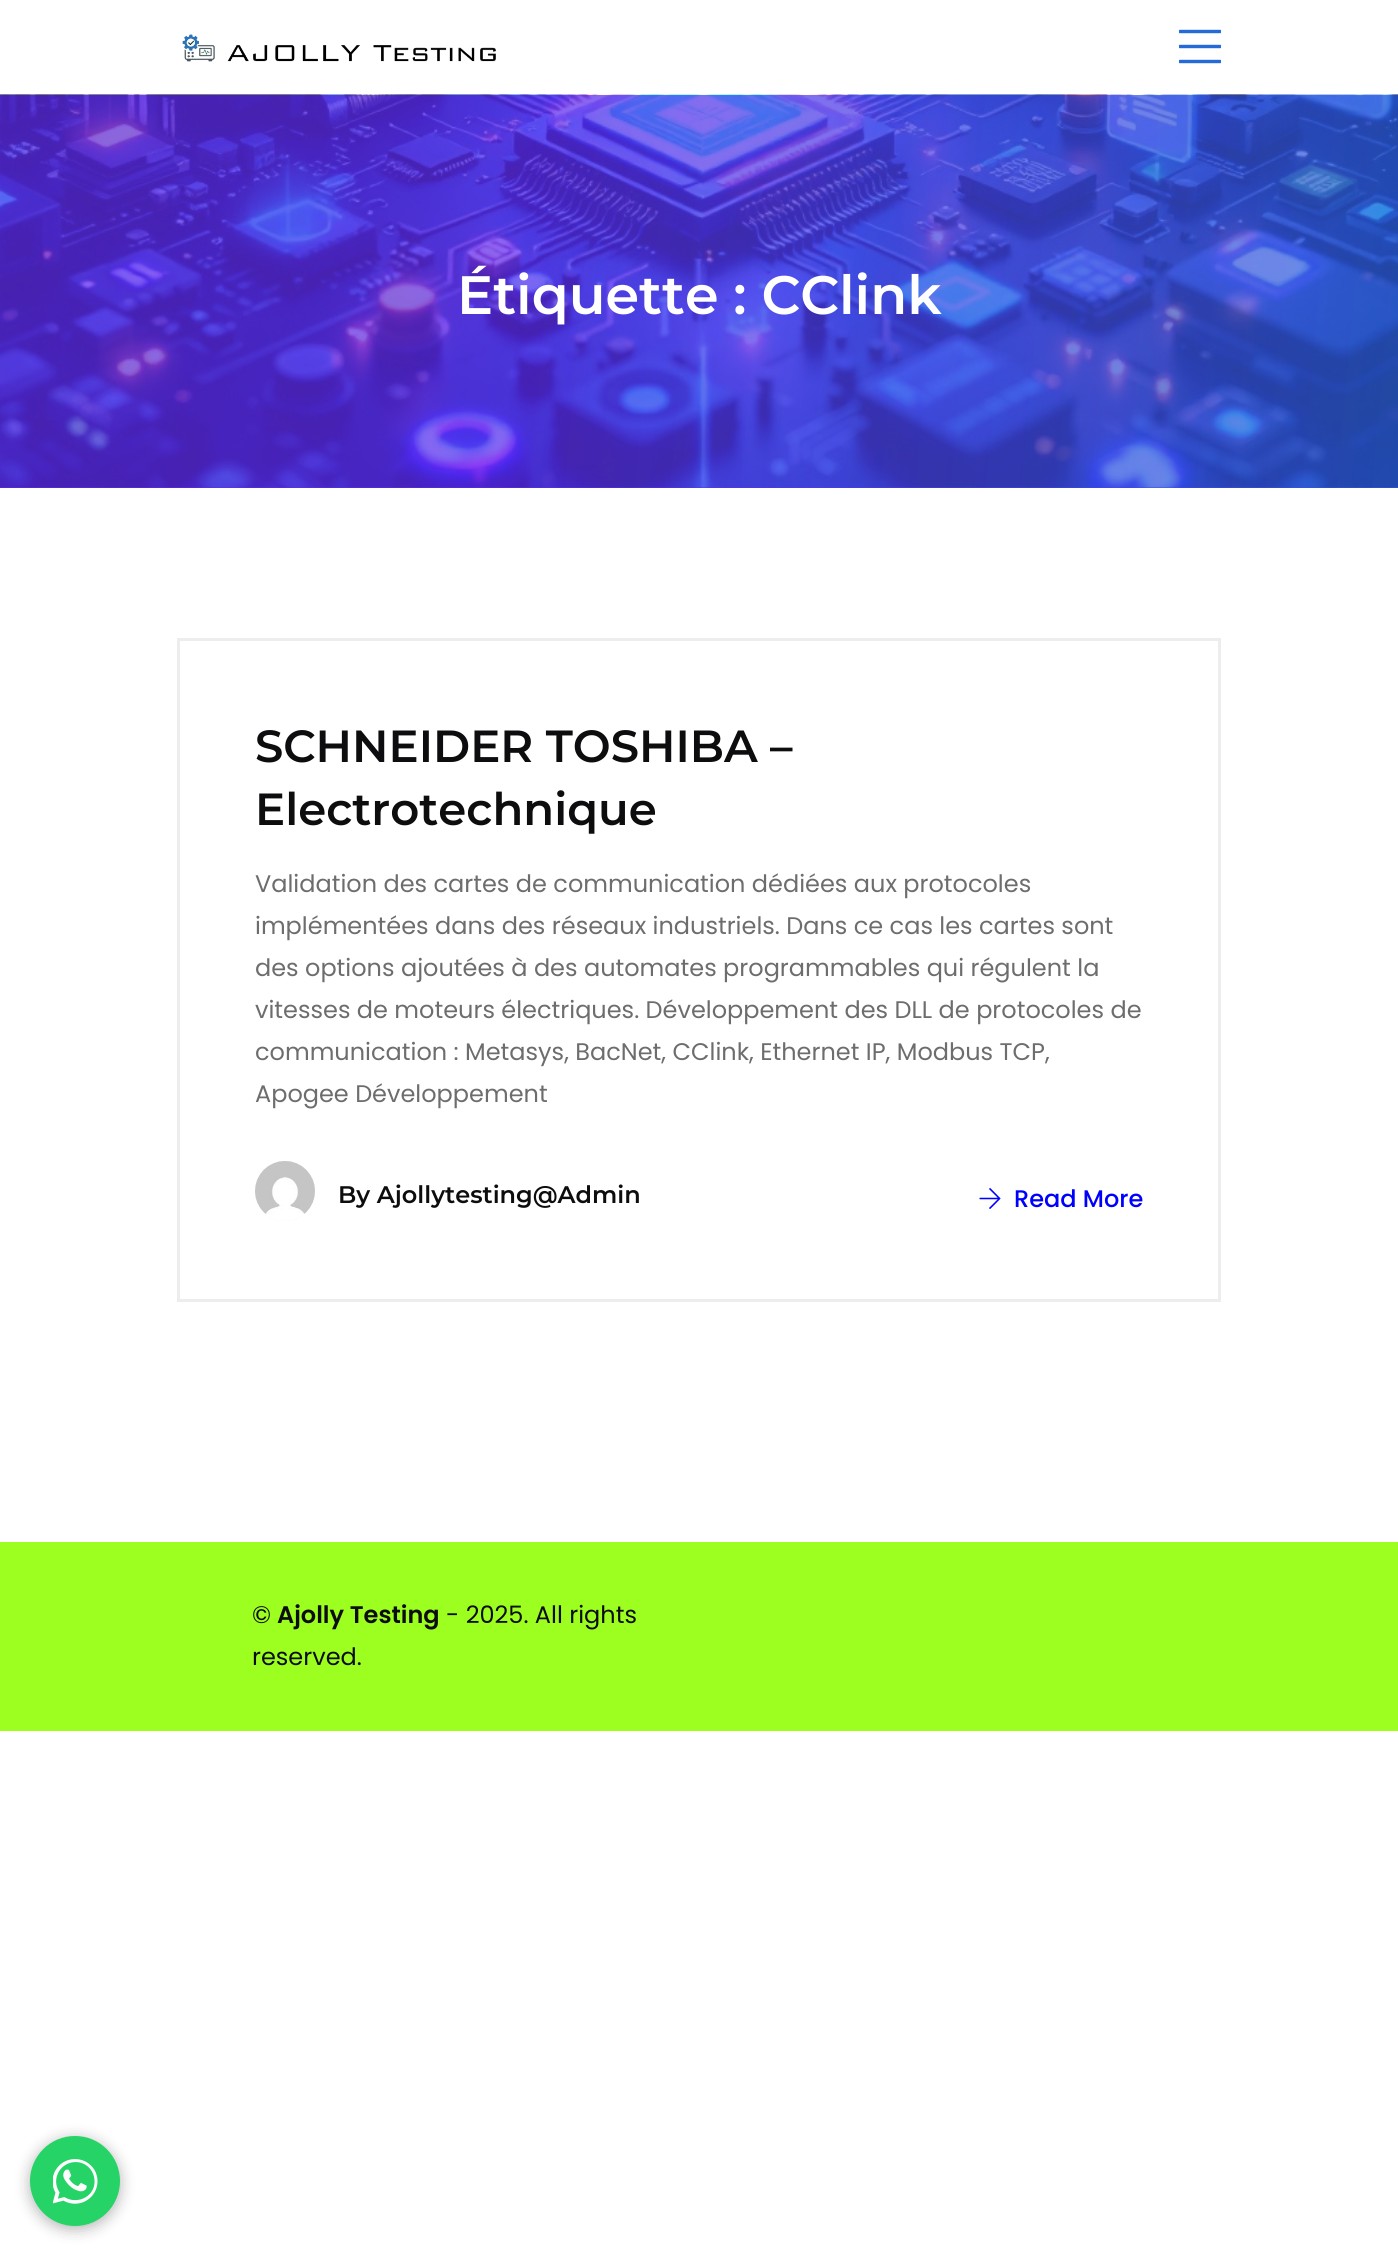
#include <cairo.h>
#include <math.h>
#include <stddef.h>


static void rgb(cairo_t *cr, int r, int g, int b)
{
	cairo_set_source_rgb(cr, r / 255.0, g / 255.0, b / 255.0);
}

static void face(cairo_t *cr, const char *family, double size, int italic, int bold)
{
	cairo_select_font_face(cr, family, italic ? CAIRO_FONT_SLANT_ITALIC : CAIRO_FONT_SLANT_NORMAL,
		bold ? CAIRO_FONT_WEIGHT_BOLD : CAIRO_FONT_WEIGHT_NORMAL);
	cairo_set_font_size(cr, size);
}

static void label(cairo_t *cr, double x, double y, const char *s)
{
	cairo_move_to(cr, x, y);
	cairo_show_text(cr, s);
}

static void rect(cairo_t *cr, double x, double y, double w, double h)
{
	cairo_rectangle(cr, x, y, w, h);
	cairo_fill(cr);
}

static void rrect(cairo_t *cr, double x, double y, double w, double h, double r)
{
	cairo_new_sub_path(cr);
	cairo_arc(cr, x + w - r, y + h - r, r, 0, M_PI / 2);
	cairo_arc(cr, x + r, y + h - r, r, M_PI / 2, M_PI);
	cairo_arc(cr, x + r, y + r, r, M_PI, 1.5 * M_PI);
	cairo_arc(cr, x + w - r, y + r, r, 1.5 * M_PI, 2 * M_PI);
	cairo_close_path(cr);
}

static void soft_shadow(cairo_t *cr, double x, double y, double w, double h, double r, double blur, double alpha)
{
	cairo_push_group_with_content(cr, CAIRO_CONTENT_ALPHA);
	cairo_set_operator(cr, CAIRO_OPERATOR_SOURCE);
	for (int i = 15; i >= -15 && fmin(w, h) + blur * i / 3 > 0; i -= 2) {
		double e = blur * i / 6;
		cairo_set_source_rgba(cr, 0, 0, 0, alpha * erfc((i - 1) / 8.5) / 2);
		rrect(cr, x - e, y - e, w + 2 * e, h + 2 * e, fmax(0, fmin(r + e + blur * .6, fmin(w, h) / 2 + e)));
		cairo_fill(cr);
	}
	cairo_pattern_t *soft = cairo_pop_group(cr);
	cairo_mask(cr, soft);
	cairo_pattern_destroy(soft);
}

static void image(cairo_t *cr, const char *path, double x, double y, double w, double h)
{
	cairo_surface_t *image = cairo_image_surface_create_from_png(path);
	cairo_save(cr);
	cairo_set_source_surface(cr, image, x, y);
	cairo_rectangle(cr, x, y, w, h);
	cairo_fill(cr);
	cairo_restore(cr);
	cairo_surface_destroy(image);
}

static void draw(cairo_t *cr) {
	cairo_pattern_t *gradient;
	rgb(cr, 255, 255, 255);
	cairo_paint(cr);
	image(cr, "image0.png", 182, 34, 314, 28);
	image(cr, "image1.png", 1179, 29, 42, 35);
	rgb(cr, 95, 45, 238);
	rect(cr, 0, 487, 1398, 1);
	image(cr, "image2.png", 0, 94, 1398, 394);
	gradient = cairo_pattern_create_linear(-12, 228, 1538, 365);
	cairo_pattern_add_color_stop_rgba(gradient, 0.34, 0.373, 0.176, 0.933, 0.48);
	cairo_pattern_add_color_stop_rgba(gradient, 1, 0.145, 0.416, 0.843, 0.48);
	cairo_set_source(cr, gradient);
	cairo_pattern_destroy(gradient);
	rect(cr, 0, 95, 1398, 393);
	rect(cr, 0, 95, 1398, 393);
	face(cr, "Montserrat SemiBold", 54, 0, 0);
	rgb(cr, 255, 255, 255);
	label(cr, 457, 314, "Étiquette : CClink");
	cairo_rectangle(cr, 178.5, 639.5, 1041, 661);
	rgb(cr, 237, 237, 237);
	cairo_set_line_width(cr, 3);
	cairo_stroke(cr);
	face(cr, "Montserrat SemiBold", 45, 0, 0);
	rgb(cr, 13, 13, 15);
	label(cr, 255, 762, "SCHNEIDER TOSHIBA –");
	label(cr, 255, 825, "Electrotechnique");
	face(cr, "Poppins", 24, 0, 0);
	rgb(cr, 109, 109, 109);
	label(cr, 255, 892, "Validation des cartes de communication dédiées aux protocoles");
	label(cr, 255, 934, "implémentées dans des réseaux industriels. Dans ce cas les cartes sont");
	label(cr, 255, 976, "des options ajoutées à des automates programmables qui régulent la");
	label(cr, 255, 1018, "vitesses de moteurs électriques. Développement des DLL de protocoles de");
	label(cr, 255, 1060, "communication : Metasys, BacNet, CClink, Ethernet IP, Modbus TCP,");
	label(cr, 255, 1102, "Apogee Développement");
	rgb(cr, 242, 242, 242);
	cairo_new_path(cr);
	cairo_arc(cr, 285, 1191, 30, 0, 2 * M_PI);
	cairo_fill(cr);
	image(cr, "image3.png", 255, 1161, 60, 60);
	face(cr, "Montserrat SemiBold", 24, 0, 0);
	rgb(cr, 13, 13, 15);
	label(cr, 338, 1203, "By Ajollytesting@Admin");
	image(cr, "image4.png", 979, 1188, 22, 21);
	face(cr, "Poppins Medium", 24, 0, 0);
	rgb(cr, 0, 0, 255);
	label(cr, 1014, 1207, "Read More");
	rgb(cr, 157, 255, 32);
	rect(cr, 0, 1542, 1398, 189);
	face(cr, "Poppins", 24, 0, 0);
	rgb(cr, 13, 13, 15);
	label(cr, 252, 1623, "©");
	face(cr, "Poppins SemiBold", 24, 0, 0);
	label(cr, 277, 1623, "Ajolly Testing");
	face(cr, "Poppins", 24, 0, 0);
	label(cr, 446, 1623, "- 2025. All rights");
	label(cr, 252, 1665, "reserved.");
	rgb(cr, 0, 0, 0);
	soft_shadow(cr, 30, 2139, 90, 90, 45, 7.5, 0.3);
	rgb(cr, 37, 211, 102);
	cairo_arc(cr, 75, 2181, 45, 0, 2 * M_PI);
	cairo_fill(cr);
	image(cr, "image5.png", 53, 2159, 45, 45);
}

int main(void) {
	cairo_surface_t *surface = cairo_image_surface_create(CAIRO_FORMAT_RGB24, 1398, 2256);
	cairo_t *cr = cairo_create(surface);
	cairo_font_options_t *options = cairo_font_options_create();
	cairo_font_options_set_hint_metrics(options, CAIRO_HINT_METRICS_OFF);
	cairo_font_options_set_hint_style(options, CAIRO_HINT_STYLE_NONE);
	cairo_set_font_options(cr, options);
	cairo_set_miter_limit(cr, 4);
	draw(cr);
	cairo_surface_write_to_png(surface, "render.png");
	cairo_font_options_destroy(options);
	cairo_destroy(cr);
	cairo_surface_destroy(surface);
	return 0;
}
